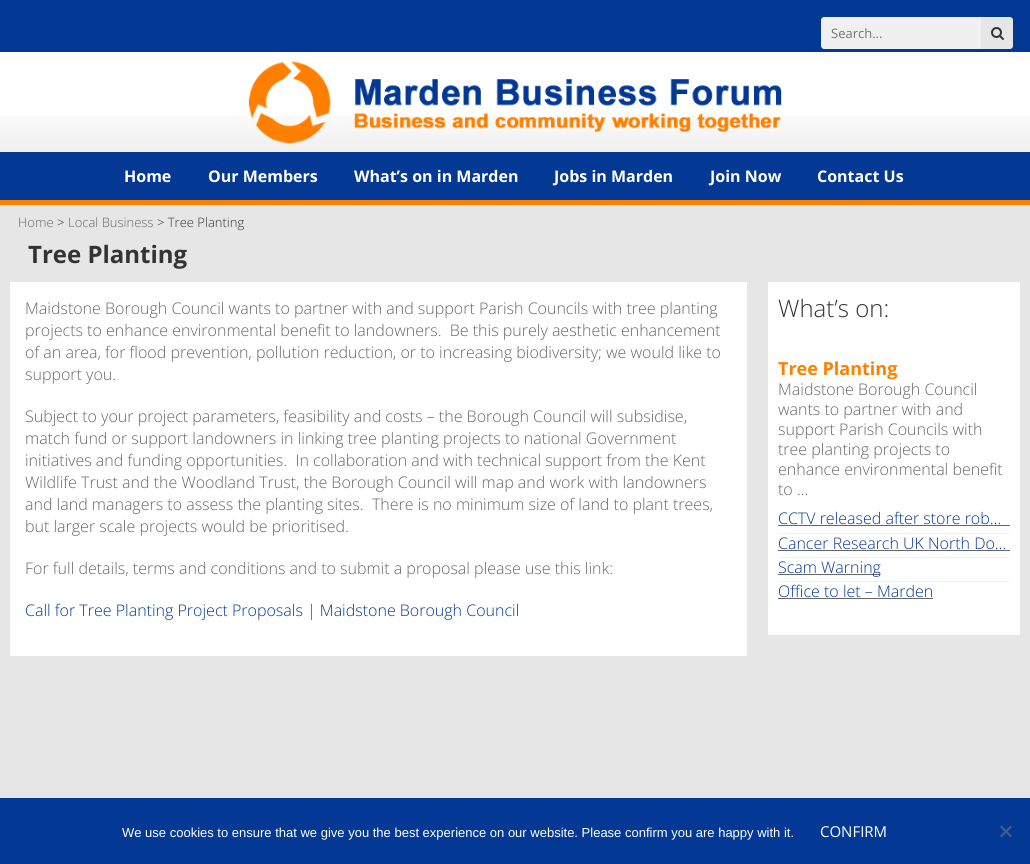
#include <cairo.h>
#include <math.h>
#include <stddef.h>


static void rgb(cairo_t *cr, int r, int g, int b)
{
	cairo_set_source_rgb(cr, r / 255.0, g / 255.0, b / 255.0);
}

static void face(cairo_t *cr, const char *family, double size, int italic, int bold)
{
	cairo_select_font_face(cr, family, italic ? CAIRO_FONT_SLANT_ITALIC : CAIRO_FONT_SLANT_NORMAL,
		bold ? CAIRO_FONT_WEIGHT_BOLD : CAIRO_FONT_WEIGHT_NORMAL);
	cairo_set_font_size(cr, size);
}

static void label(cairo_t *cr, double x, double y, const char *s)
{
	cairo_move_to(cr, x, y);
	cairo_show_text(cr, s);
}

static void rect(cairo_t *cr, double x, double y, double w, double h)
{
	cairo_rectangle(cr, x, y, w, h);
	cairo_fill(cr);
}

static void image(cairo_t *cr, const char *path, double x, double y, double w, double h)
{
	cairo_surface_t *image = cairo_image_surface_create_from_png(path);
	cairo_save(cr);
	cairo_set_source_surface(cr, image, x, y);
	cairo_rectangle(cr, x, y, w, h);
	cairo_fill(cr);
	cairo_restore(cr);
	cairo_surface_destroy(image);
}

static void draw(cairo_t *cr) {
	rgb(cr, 3, 57, 148);
	cairo_paint(cr);
	rgb(cr, 240, 240, 240);
	cairo_new_path(cr);
	cairo_move_to(cr, 824, 17);
	cairo_line_to(cr, 981, 17);
	cairo_line_to(cr, 981, 49);
	cairo_line_to(cr, 824, 49);
	cairo_curve_to(cr, 822.5, 49, 821, 47.5, 821, 46);
	cairo_line_to(cr, 821, 20);
	cairo_curve_to(cr, 821, 18.5, 822.5, 17, 824, 17);
	cairo_close_path(cr);
	cairo_fill(cr);
	face(cr, "Open Sans", 13, 0, 0);
	rgb(cr, 117, 117, 117);
	label(cr, 831, 38, "Search...");
	rgb(cr, 230, 230, 230);
	cairo_new_path(cr);
	cairo_move_to(cr, 981, 17);
	cairo_line_to(cr, 1010, 17);
	cairo_curve_to(cr, 1011.5, 17, 1013, 18.5, 1013, 20);
	cairo_line_to(cr, 1013, 46);
	cairo_curve_to(cr, 1013, 47.5, 1011.5, 49, 1010, 49);
	cairo_line_to(cr, 981, 49);
	cairo_close_path(cr);
	cairo_fill(cr);
	image(cr, "image0.png", 991, 27, 13, 13);
	rgb(cr, 255, 255, 255);
	rect(cr, 0, 52, 1030, 64);
	image(cr, "image1.png", 0, 116, 1030, 36);
	image(cr, "image2.png", 248, 61, 534, 83);
	rgb(cr, 255, 128, 0);
	rect(cr, 0, 200, 1030, 5);
	face(cr, "Open Sans", 16, 0, 1);
	rgb(cr, 255, 255, 255);
	label(cr, 124, 182, "Home");
	label(cr, 208, 182, "Our Members");
	label(cr, 354, 182, "What’s on in Marden");
	label(cr, 554, 182, "Jobs in Marden");
	label(cr, 710, 182, "Join Now");
	label(cr, 817, 182, "Contact Us");
	rgb(cr, 230, 230, 230);
	rect(cr, 0, 205, 1030, 593);
	face(cr, "Open Sans Light", 13, 0, 0);
	rgb(cr, 102, 102, 102);
	label(cr, 18, 227, "Home");
	rgb(cr, 51, 51, 51);
	label(cr, 57, 227, ">");
	rgb(cr, 102, 102, 102);
	label(cr, 68, 227, "Local Business");
	rgb(cr, 51, 51, 51);
	label(cr, 157, 227, "> Tree Planting");
	face(cr, "Open Sans", 24, 0, 1);
	label(cr, 28, 263, "Tree Planting");
	rgb(cr, 255, 255, 255);
	rect(cr, 10, 282, 737, 374);
	face(cr, "Open Sans Light", 16, 0, 0);
	rgb(cr, 102, 102, 102);
	label(cr, 25, 314, "Maidstone Borough Council wants to partner with and support Parish Councils with tree planting");
	label(cr, 25, 336, "projects to enhance environmental benefit to landowners.  Be this purely aesthetic enhancement");
	label(cr, 25, 358, "of an area, for flood prevention, pollution reduction, or to increasing biodiversity; we would like to");
	label(cr, 25, 380, "support you.");
	label(cr, 25, 422, "Subject to your project parameters, feasibility and costs – the Borough Council will subsidise,");
	label(cr, 25, 444, "match fund or support landowners in linking tree planting projects to national Government");
	label(cr, 25, 466, "initiatives and funding opportunities.  In collaboration and with technical support from the Kent");
	label(cr, 25, 488, "Wildlife Trust and the Woodland Trust, the Borough Council will map and work with landowners");
	label(cr, 25, 510, "and land managers to assess the planting sites.  There is no minimum size of land to plant trees,");
	label(cr, 25, 532, "but larger scale projects would be prioritised.");
	label(cr, 25, 574, "For full details, terms and conditions and to submit a proposal please use this link:");
	rgb(cr, 3, 57, 148);
	label(cr, 25, 616, "Call for Tree Planting Project Proposals | Maidstone Borough Council");
	rgb(cr, 255, 255, 255);
	rect(cr, 768, 282, 252, 353);
	face(cr, "Open Sans Light", 24, 0, 0);
	rgb(cr, 51, 51, 51);
	label(cr, 778, 317, "What’s on:");
	face(cr, "Open Sans", 18, 0, 1);
	rgb(cr, 255, 128, 0);
	label(cr, 778, 375, "Tree Planting");
	face(cr, "Open Sans Light", 16, 0, 0);
	rgb(cr, 102, 102, 102);
	label(cr, 778, 395, "Maidstone Borough Council");
	label(cr, 778, 415, "wants to partner with and");
	label(cr, 778, 435, "support Parish Councils with");
	label(cr, 778, 455, "tree planting projects to");
	label(cr, 778, 475, "enhance environmental benefit");
	label(cr, 778, 495, "to ...");
	rgb(cr, 242, 242, 242);
	rect(cr, 778, 533, 232, 1);
	rgb(cr, 3, 57, 148);
	label(cr, 778, 524, "CCTV released after store rob…");
	rgb(cr, 102, 102, 102);
	rect(cr, 778, 525, 232, 1);
	rgb(cr, 242, 242, 242);
	rect(cr, 778, 557, 232, 1);
	rgb(cr, 3, 57, 148);
	label(cr, 778, 549, "Cancer Research UK North Do…");
	rgb(cr, 102, 102, 102);
	rect(cr, 778, 550, 232, 1);
	rgb(cr, 242, 242, 242);
	rect(cr, 778, 581, 232, 1);
	rgb(cr, 102, 102, 102);
	rect(cr, 778, 574, 102, 1);
	rgb(cr, 3, 57, 148);
	label(cr, 778, 573, "Scam Warning");
	label(cr, 778, 597, "Office to let – Marden");
	rgb(cr, 102, 102, 102);
	rect(cr, 778, 598, 155, 1);
	face(cr, "Liberation Sans", 13, 0, 0);
	rgb(cr, 255, 255, 255);
	label(cr, 122, 837, "We use cookies to ensure that we give you the best experience on our website. Please confirm you are happy with it.");
	face(cr, "Open Sans", 15, 0, 0);
	label(cr, 820, 837, "CONFIRM");
	rgb(cr, 66, 93, 138);
	cairo_new_path(cr);
	cairo_move_to(cr, 1010.5, 825.5);
	cairo_line_to(cr, 1012, 827);
	cairo_line_to(cr, 1001.5, 837.5);
	cairo_line_to(cr, 1000, 836);
	cairo_close_path(cr);
	cairo_fill(cr);
	cairo_new_path(cr);
	cairo_move_to(cr, 1000, 827);
	cairo_line_to(cr, 1001.5, 825.5);
	cairo_line_to(cr, 1012, 836);
	cairo_line_to(cr, 1010.5, 837.5);
	cairo_close_path(cr);
	cairo_fill(cr);
}

int main(void) {
	cairo_surface_t *surface = cairo_image_surface_create(CAIRO_FORMAT_RGB24, 1030, 864);
	cairo_t *cr = cairo_create(surface);
	cairo_font_options_t *options = cairo_font_options_create();
	cairo_font_options_set_hint_metrics(options, CAIRO_HINT_METRICS_OFF);
	cairo_font_options_set_hint_style(options, CAIRO_HINT_STYLE_NONE);
	cairo_set_font_options(cr, options);
	cairo_set_miter_limit(cr, 4);
	draw(cr);
	cairo_surface_write_to_png(surface, "render.png");
	cairo_font_options_destroy(options);
	cairo_destroy(cr);
	cairo_surface_destroy(surface);
	return 0;
}
